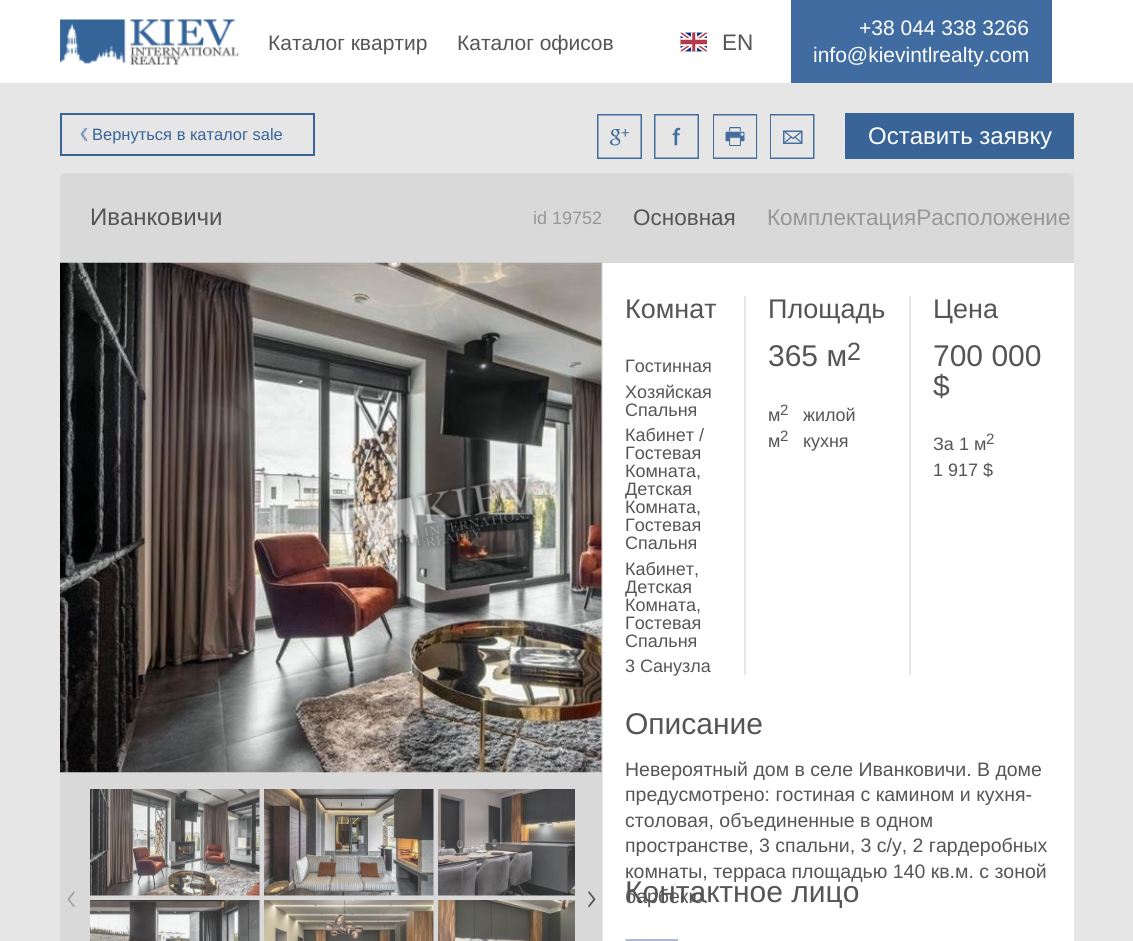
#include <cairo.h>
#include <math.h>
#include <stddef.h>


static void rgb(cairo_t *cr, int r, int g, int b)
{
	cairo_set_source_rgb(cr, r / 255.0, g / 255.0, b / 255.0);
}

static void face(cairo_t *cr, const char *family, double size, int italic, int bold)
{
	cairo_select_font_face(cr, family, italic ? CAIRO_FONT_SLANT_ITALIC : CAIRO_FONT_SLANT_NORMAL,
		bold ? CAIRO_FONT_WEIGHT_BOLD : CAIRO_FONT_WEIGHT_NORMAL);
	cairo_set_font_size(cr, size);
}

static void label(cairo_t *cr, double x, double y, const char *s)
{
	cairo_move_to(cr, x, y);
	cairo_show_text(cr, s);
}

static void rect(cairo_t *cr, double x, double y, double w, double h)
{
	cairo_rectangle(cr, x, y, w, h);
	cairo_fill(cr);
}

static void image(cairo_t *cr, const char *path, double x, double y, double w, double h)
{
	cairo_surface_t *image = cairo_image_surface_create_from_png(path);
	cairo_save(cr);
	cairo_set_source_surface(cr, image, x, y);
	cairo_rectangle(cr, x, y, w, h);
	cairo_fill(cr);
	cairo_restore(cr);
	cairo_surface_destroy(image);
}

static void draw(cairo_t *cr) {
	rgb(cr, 230, 230, 230);
	cairo_paint(cr);
	rgb(cr, 255, 255, 255);
	rect(cr, 0, 0, 1133, 83);
	image(cr, "image0.png", 60, 19, 179, 46);
	face(cr, "Liberation Sans", 21, 0, 0);
	rgb(cr, 85, 85, 87);
	label(cr, 268, 50, "Каталог квартир");
	label(cr, 457, 50, "Каталог офисов");
	image(cr, "image1.png", 680, 32, 28, 20);
	face(cr, "Liberation Sans", 22.5, 0, 0);
	label(cr, 722, 50, "EN");
	rgb(cr, 64, 108, 161);
	rect(cr, 791, 0, 261, 83);
	face(cr, "Liberation Sans", 21, 0, 0);
	rgb(cr, 255, 255, 255);
	label(cr, 859, 35, "+38 044 338 3266");
	label(cr, 813, 62, "info@kievintlrealty.com");
	cairo_rectangle(cr, 61, 114, 253, 41);
	rgb(cr, 56, 100, 152);
	cairo_stroke(cr);
	image(cr, "image2.png", 81, 128, 6, 13);
	face(cr, "Liberation Sans", 16.5, 0, 0);
	label(cr, 92, 140, "Вернуться в каталог sale");
	image(cr, "image3.png", 597, 114, 45, 45);
	image(cr, "image4.png", 654, 114, 45, 45);
	image(cr, "image5.png", 713, 114, 45, 45);
	image(cr, "image6.png", 770, 114, 45, 45);
	rect(cr, 845, 113, 229, 46);
	face(cr, "Liberation Sans", 24, 0, 0);
	rgb(cr, 255, 255, 255);
	label(cr, 868, 144, "Оставить заявку");
	rgb(cr, 217, 217, 217);
	cairo_new_path(cr);
	cairo_move_to(cr, 66, 173);
	cairo_line_to(cr, 1068, 173);
	cairo_curve_to(cr, 1071.5, 173, 1074, 175.5, 1074, 179);
	cairo_line_to(cr, 1074, 263);
	cairo_line_to(cr, 60, 263);
	cairo_line_to(cr, 60, 179);
	cairo_curve_to(cr, 60, 175.5, 62.5, 173, 66, 173);
	cairo_close_path(cr);
	cairo_fill(cr);
	rgb(cr, 85, 85, 87);
	label(cr, 90, 225, "Иванковичи");
	face(cr, "Liberation Sans", 18, 0, 0);
	rgb(cr, 151, 151, 152);
	label(cr, 533, 224, "id 19752");
	face(cr, "Liberation Sans", 22.5, 0, 0);
	rgb(cr, 85, 85, 87);
	label(cr, 633, 225, "Основная");
	rgb(cr, 151, 151, 152);
	label(cr, 767, 225, "КомплектацияРасположение");
	rgb(cr, 217, 217, 217);
	rect(cr, 60, 263, 542, 678);
	image(cr, "image7.png", 60, 262, 542, 511);
	image(cr, "image8.png", 67, 891, 8, 17);
	image(cr, "image9.png", 90, 789, 170, 107);
	image(cr, "image10.png", 90, 900, 170, 41);
	image(cr, "image11.png", 264, 789, 170, 107);
	image(cr, "image12.png", 264, 900, 170, 41);
	image(cr, "image13.png", 438, 789, 137, 107);
	image(cr, "image14.png", 438, 900, 137, 41);
	image(cr, "image15.png", 588, 891, 8, 17);
	rgb(cr, 255, 255, 255);
	rect(cr, 603, 263, 471, 678);
	face(cr, "Liberation Sans", 27, 0, 0);
	rgb(cr, 85, 85, 87);
	label(cr, 625, 318, "Комнат");
	face(cr, "Liberation Sans", 18, 0, 0);
	label(cr, 625, 372, "Гостинная");
	label(cr, 625, 398, "Хозяйская");
	label(cr, 625, 416, "Спальня");
	label(cr, 625, 441, "Кабинет /");
	label(cr, 625, 459, "Гостевая");
	label(cr, 625, 477, "Комната,");
	label(cr, 625, 495, "Детская");
	label(cr, 625, 513, "Комната,");
	label(cr, 625, 531, "Гостевая");
	label(cr, 625, 549, "Спальня");
	label(cr, 625, 575, "Кабинет,");
	label(cr, 625, 593, "Детская");
	label(cr, 625, 611, "Комната,");
	label(cr, 625, 629, "Гостевая");
	label(cr, 625, 647, "Спальня");
	label(cr, 625, 672, "3 Санузла");
	rgb(cr, 230, 230, 230);
	rect(cr, 909, 296, 2, 379);
	rect(cr, 744, 296, 2, 379);
	face(cr, "Liberation Sans", 27, 0, 0);
	rgb(cr, 85, 85, 87);
	label(cr, 768, 318, "Площадь");
	face(cr, "Liberation Sans", 30, 0, 0);
	label(cr, 768, 366, "365 м");
	face(cr, "Liberation Sans", 25, 0, 0);
	label(cr, 847, 360, "2");
	face(cr, "Liberation Sans", 18, 0, 0);
	label(cr, 768, 421, "м");
	face(cr, "Liberation Sans", 15, 0, 0);
	label(cr, 780, 415, "2");
	face(cr, "Liberation Sans", 18, 0, 0);
	label(cr, 803, 421, "жилой");
	face(cr, "Liberation Sans", 15, 0, 0);
	label(cr, 780, 441, "2");
	face(cr, "Liberation Sans", 18, 0, 0);
	label(cr, 768, 447, "м");
	label(cr, 803, 447, "кухня");
	face(cr, "Liberation Sans", 27, 0, 0);
	label(cr, 933, 318, "Цена");
	face(cr, "Liberation Sans", 30, 0, 0);
	label(cr, 933, 366, "700 000");
	label(cr, 933, 396, "$");
	face(cr, "Liberation Sans", 18, 0, 0);
	label(cr, 933, 450, "За 1 м");
	face(cr, "Liberation Sans", 15, 0, 0);
	label(cr, 986, 444, "2");
	face(cr, "Liberation Sans", 18, 0, 0);
	label(cr, 933, 476, "1 917 $");
	face(cr, "Liberation Sans", 30, 0, 0);
	label(cr, 625, 734, "Описание");
	face(cr, "Liberation Sans", 19.5, 0, 0);
	label(cr, 625, 776, "Невероятный дом в селе Иванковичи. В доме");
	label(cr, 625, 801, "предусмотрено: гостиная с камином и кухня-");
	label(cr, 625, 827, "столовая, объединенные в одном");
	label(cr, 625, 852, "пространстве, 3 спальни, 3 с/у, 2 гардеробных");
	label(cr, 625, 878, "комнаты, терраса площадью 140 кв.м. с зоной");
	label(cr, 625, 903, "барбекю.");
	face(cr, "Liberation Sans", 30, 0, 0);
	label(cr, 625, 902, "Контактное лицо");
	image(cr, "image16.png", 625, 939, 53, 2);
}

int main(void) {
	cairo_surface_t *surface = cairo_image_surface_create(CAIRO_FORMAT_RGB24, 1133, 941);
	cairo_t *cr = cairo_create(surface);
	cairo_font_options_t *options = cairo_font_options_create();
	cairo_font_options_set_hint_metrics(options, CAIRO_HINT_METRICS_OFF);
	cairo_font_options_set_hint_style(options, CAIRO_HINT_STYLE_NONE);
	cairo_set_font_options(cr, options);
	cairo_set_miter_limit(cr, 4);
	draw(cr);
	cairo_surface_write_to_png(surface, "render.png");
	cairo_font_options_destroy(options);
	cairo_destroy(cr);
	cairo_surface_destroy(surface);
	return 0;
}
